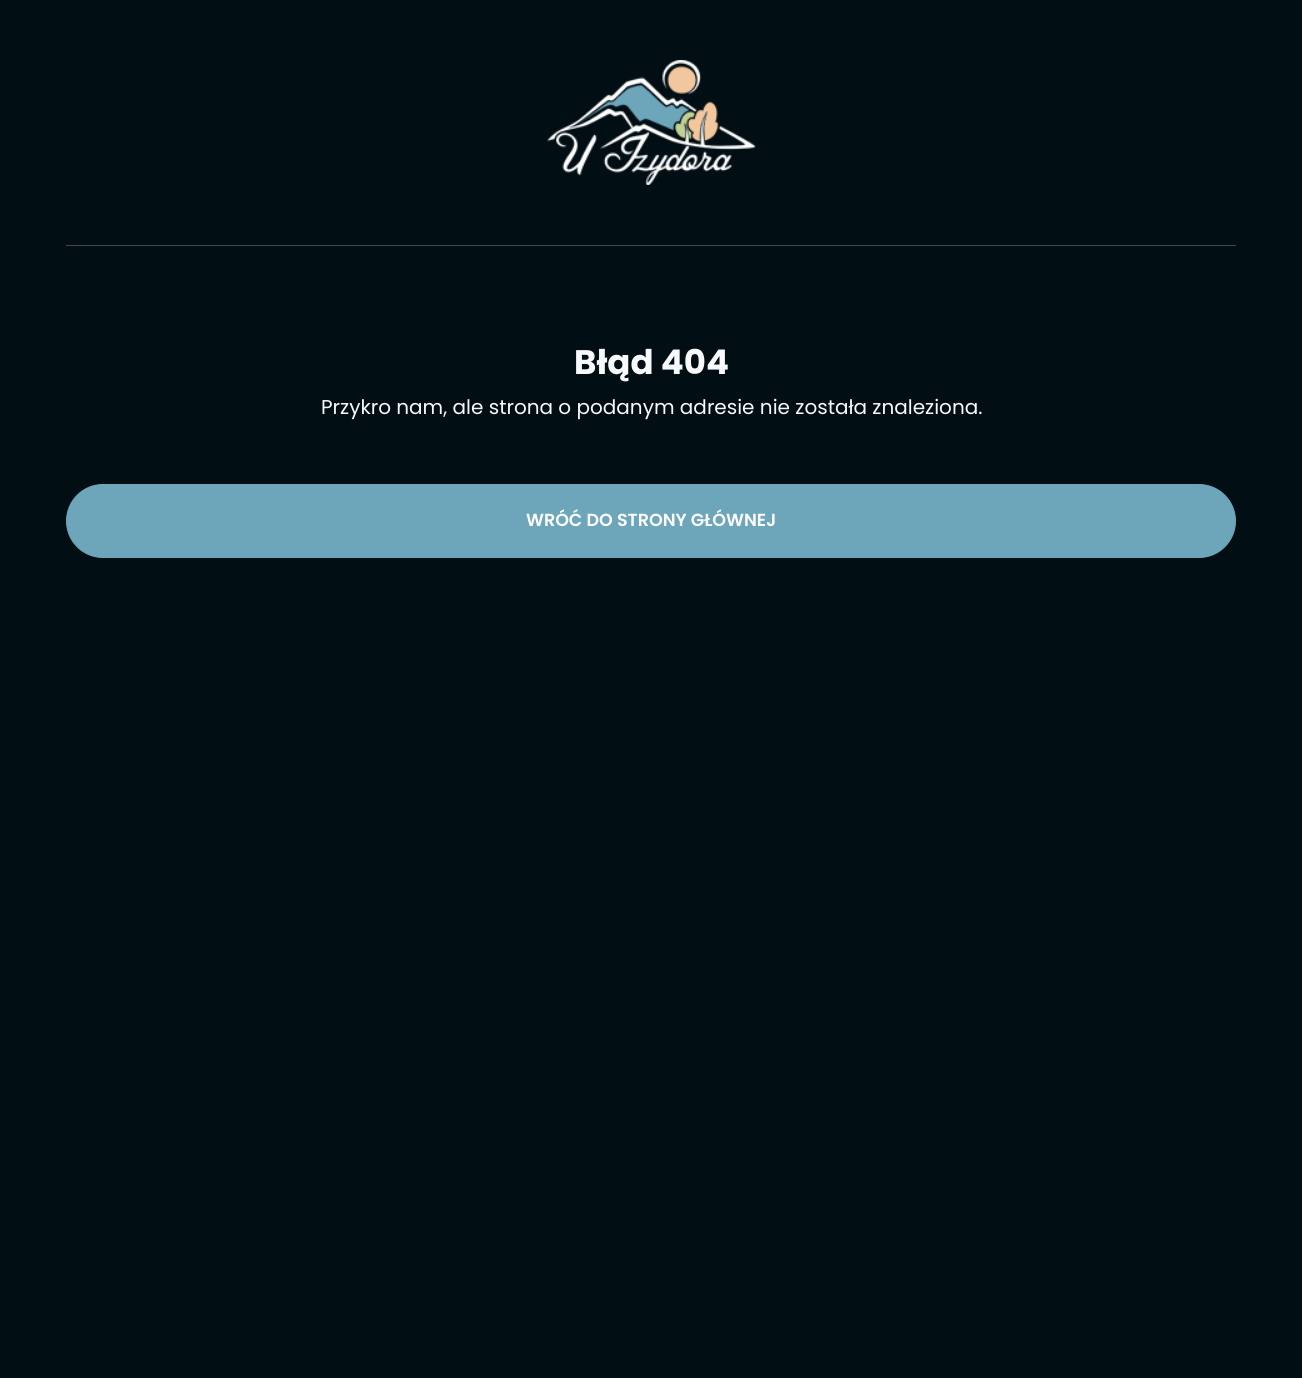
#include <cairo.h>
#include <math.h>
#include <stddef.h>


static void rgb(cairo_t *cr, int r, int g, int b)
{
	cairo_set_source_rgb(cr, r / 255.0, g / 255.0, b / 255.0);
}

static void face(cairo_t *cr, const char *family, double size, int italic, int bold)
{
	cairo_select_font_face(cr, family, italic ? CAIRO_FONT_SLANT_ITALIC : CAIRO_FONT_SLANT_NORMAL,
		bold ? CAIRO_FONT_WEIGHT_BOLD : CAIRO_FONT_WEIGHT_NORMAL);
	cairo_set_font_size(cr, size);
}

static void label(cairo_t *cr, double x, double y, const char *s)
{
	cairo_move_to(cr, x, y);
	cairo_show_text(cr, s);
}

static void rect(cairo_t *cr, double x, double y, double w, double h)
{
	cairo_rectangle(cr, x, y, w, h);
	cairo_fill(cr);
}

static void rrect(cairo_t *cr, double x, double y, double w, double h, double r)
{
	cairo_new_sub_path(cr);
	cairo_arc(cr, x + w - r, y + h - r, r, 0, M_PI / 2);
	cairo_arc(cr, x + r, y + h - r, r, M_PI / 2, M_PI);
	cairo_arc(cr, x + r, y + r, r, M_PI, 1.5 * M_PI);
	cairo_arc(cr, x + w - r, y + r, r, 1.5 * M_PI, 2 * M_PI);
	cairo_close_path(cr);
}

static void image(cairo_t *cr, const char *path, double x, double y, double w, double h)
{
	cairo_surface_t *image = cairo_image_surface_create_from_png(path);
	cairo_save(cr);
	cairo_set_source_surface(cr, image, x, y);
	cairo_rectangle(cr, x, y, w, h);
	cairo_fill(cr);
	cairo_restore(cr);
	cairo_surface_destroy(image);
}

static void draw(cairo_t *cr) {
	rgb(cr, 1, 14, 19);
	cairo_paint(cr);
	image(cr, "image0.png", 547, 60, 209, 125);
	rgb(cr, 63, 73, 77);
	rect(cr, 66, 245, 1170, 1);
	face(cr, "Poppins", 34, 0, 1);
	rgb(cr, 248, 249, 250);
	label(cr, 574, 374, "Błąd 404");
	face(cr, "Poppins", 20, 0, 0);
	label(cr, 321, 414, "Przykro nam, ale strona o podanym adresie nie została znaleziona.");
	rgb(cr, 109, 166, 187);
	rrect(cr, 66.5, 484.5, 1169, 73, 36.5);
	cairo_fill_preserve(cr);
	cairo_set_line_width(cr, 1);
	cairo_stroke(cr);
	face(cr, "Poppins SemiBold", 17.5, 0, 0);
	rgb(cr, 255, 255, 255);
	label(cr, 526, 526, "WRÓĆ DO STRONY GŁÓWNEJ");
}

int main(void) {
	cairo_surface_t *surface = cairo_image_surface_create(CAIRO_FORMAT_RGB24, 1302, 1378);
	cairo_t *cr = cairo_create(surface);
	cairo_font_options_t *options = cairo_font_options_create();
	cairo_font_options_set_hint_metrics(options, CAIRO_HINT_METRICS_OFF);
	cairo_font_options_set_hint_style(options, CAIRO_HINT_STYLE_NONE);
	cairo_set_font_options(cr, options);
	cairo_set_miter_limit(cr, 4);
	draw(cr);
	cairo_surface_write_to_png(surface, "render.png");
	cairo_font_options_destroy(options);
	cairo_destroy(cr);
	cairo_surface_destroy(surface);
	return 0;
}
